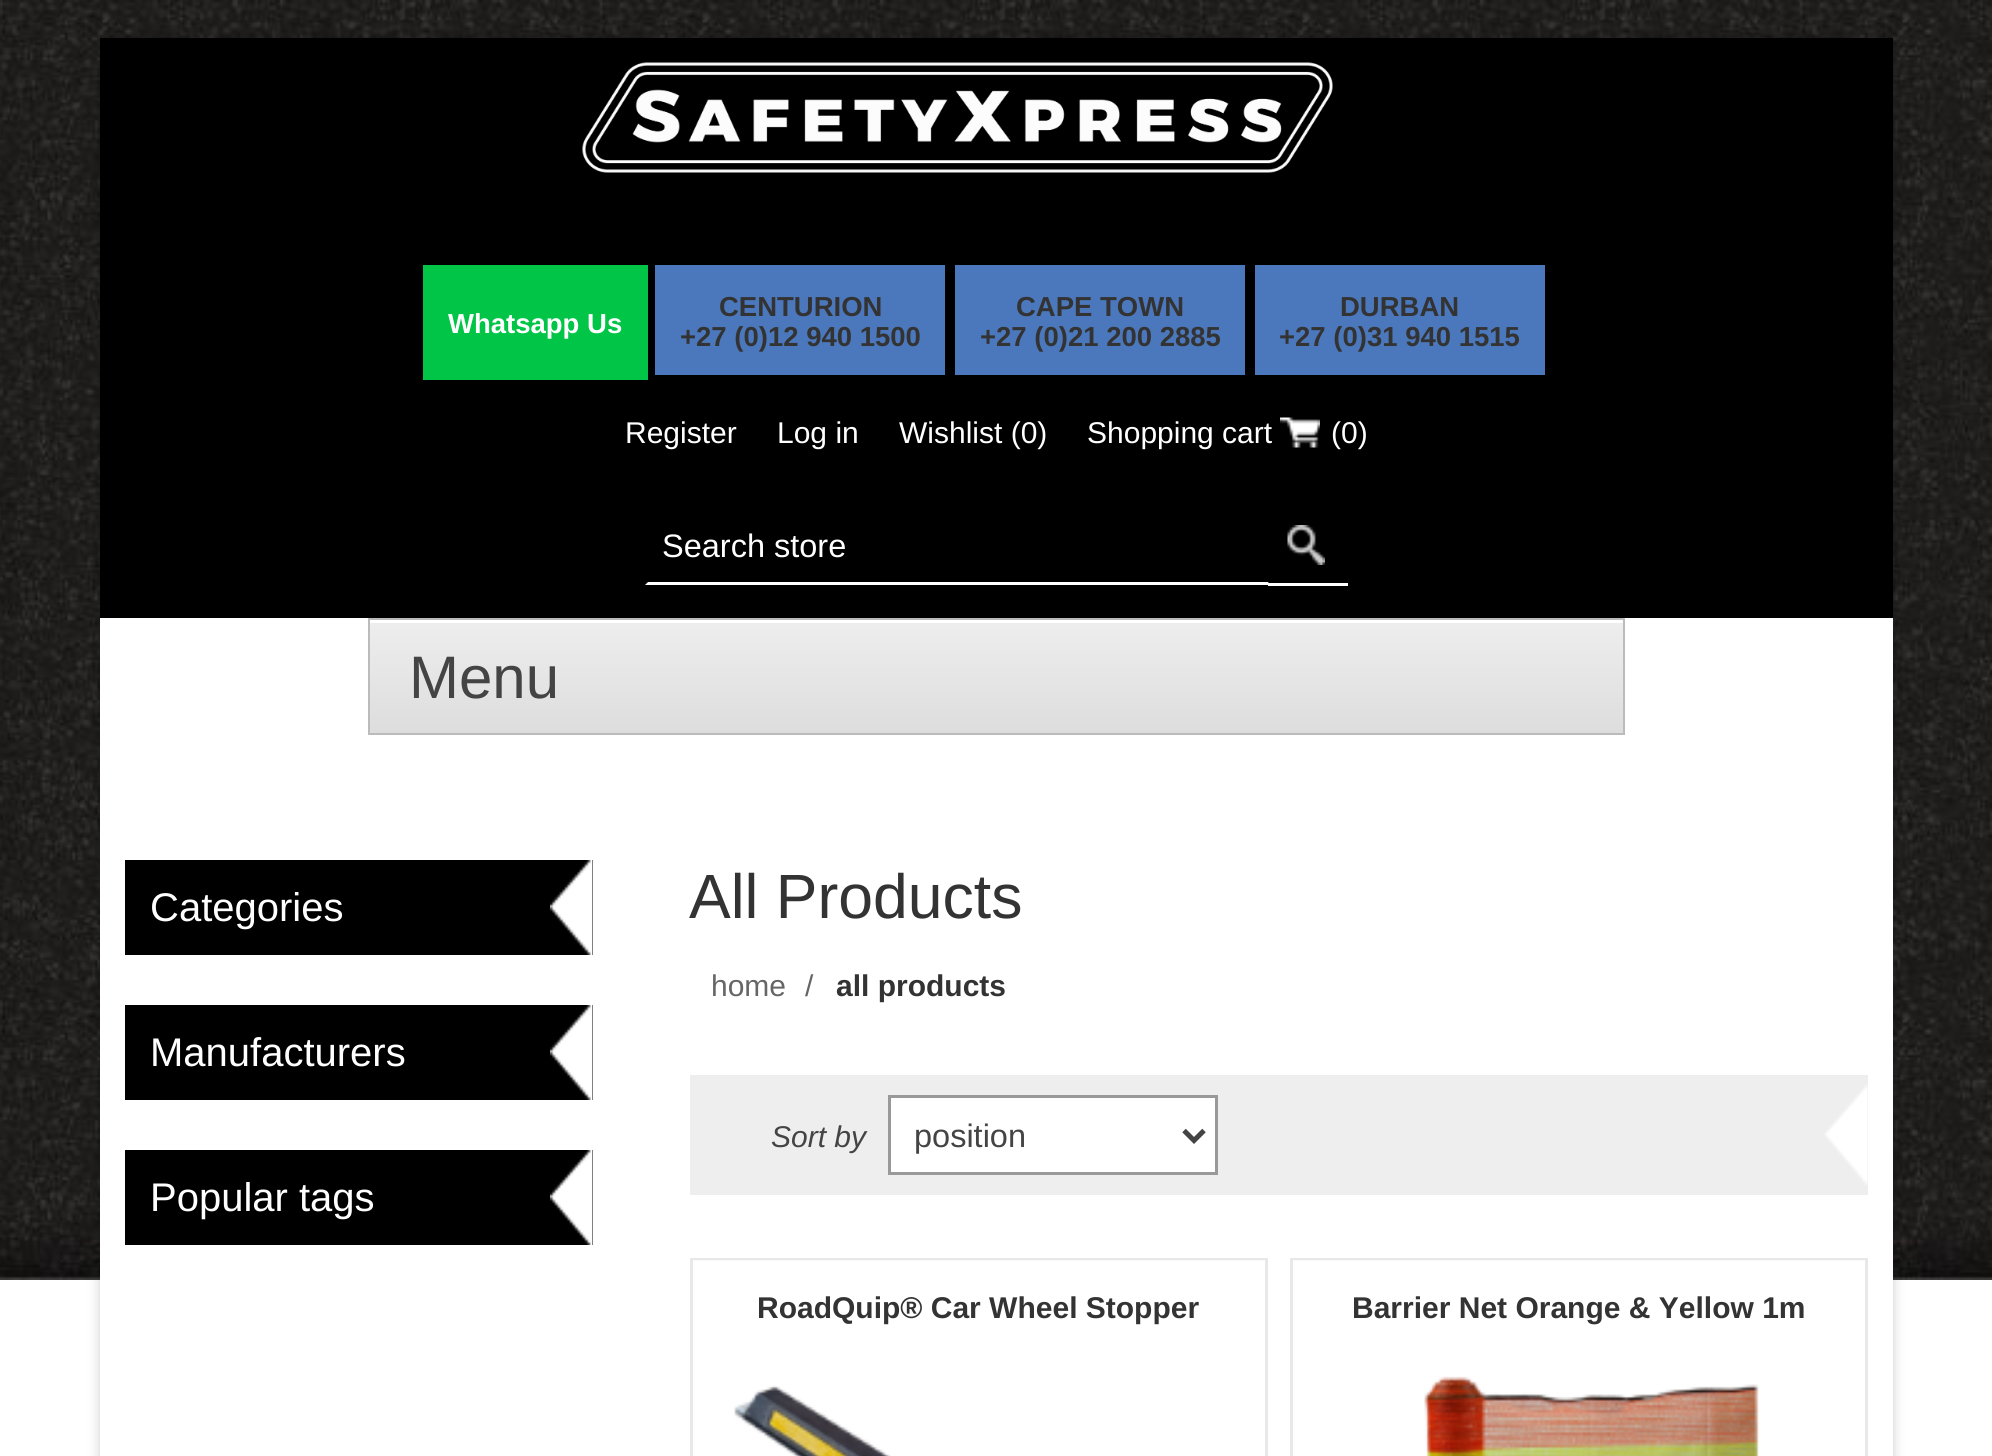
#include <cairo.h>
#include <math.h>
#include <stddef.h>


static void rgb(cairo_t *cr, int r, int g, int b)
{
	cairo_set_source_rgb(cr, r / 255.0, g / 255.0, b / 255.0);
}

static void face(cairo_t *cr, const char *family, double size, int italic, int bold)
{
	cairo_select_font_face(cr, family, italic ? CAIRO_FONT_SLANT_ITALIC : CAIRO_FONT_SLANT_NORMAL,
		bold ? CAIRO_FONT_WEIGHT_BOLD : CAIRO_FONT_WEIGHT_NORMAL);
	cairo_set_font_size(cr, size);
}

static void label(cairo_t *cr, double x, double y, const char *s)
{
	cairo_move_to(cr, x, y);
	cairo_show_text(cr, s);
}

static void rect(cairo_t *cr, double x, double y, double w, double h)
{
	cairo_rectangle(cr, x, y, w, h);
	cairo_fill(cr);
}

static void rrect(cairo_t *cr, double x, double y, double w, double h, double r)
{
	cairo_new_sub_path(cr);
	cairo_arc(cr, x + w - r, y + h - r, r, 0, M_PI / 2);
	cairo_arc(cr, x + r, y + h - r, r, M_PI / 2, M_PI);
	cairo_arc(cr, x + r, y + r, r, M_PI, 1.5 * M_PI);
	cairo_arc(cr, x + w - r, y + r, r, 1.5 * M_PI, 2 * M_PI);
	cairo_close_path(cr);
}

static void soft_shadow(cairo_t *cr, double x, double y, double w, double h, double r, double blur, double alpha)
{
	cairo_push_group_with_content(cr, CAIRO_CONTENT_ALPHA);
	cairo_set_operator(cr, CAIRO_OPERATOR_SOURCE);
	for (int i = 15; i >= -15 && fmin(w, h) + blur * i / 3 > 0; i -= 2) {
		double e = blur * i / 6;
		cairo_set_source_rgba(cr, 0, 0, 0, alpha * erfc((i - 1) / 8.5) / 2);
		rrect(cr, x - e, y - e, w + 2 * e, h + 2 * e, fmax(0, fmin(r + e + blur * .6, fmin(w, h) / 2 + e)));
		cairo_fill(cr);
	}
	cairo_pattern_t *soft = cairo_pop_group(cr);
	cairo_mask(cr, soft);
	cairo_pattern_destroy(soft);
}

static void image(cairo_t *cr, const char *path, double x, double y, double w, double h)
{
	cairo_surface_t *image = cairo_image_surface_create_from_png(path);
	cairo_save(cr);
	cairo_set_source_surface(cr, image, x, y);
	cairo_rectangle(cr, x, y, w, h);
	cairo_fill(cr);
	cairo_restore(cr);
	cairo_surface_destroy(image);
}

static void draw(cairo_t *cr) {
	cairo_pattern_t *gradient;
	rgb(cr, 255, 255, 255);
	cairo_paint(cr);
	image(cr, "image0.png", 0, 0, 1992, 1280);
	rgb(cr, 0, 0, 0);
	soft_shadow(cr, 100, 38, 1793, 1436, 0, 6, 0.2);
	rgb(cr, 255, 255, 255);
	rect(cr, 100, 618, 1793, 838);
	rgb(cr, 0, 0, 0);
	rect(cr, 100, 38, 1793, 580);
	image(cr, "image1.png", 582, 62, 751, 111);
	rgb(cr, 0, 197, 71);
	rect(cr, 423, 265, 225, 115);
	face(cr, "Liberation Sans", 27.5, 0, 1);
	rgb(cr, 255, 255, 255);
	label(cr, 448, 333, "Whatsapp Us");
	rgb(cr, 75, 120, 188);
	rect(cr, 655, 265, 290, 110);
	rgb(cr, 51, 51, 51);
	label(cr, 719, 316, "CENTURION");
	label(cr, 680, 346, "+27 (0)12 940 1500");
	rgb(cr, 75, 120, 188);
	rect(cr, 955, 265, 290, 110);
	rgb(cr, 51, 51, 51);
	label(cr, 1016, 316, "CAPE TOWN");
	label(cr, 980, 346, "+27 (0)21 200 2885");
	rgb(cr, 75, 120, 188);
	rect(cr, 1255, 265, 290, 110);
	rgb(cr, 51, 51, 51);
	label(cr, 1340, 316, "DURBAN");
	label(cr, 1279, 346, "+27 (0)31 940 1515");
	face(cr, "Liberation Sans", 30, 0, 0);
	rgb(cr, 255, 255, 255);
	label(cr, 625, 443, "Register");
	label(cr, 777, 443, "Log in");
	label(cr, 899, 443, "Wishlist (0)");
	label(cr, 1087, 443, "Shopping cart");
	image(cr, "image2.png", 1280, 417, 40, 31);
	label(cr, 1331, 443, "(0)");
	cairo_new_path(cr);
	cairo_move_to(cr, 1270, 585);
	cairo_line_to(cr, 645, 585);
	cairo_line_to(cr, 648, 582);
	cairo_line_to(cr, 1268, 582);
	cairo_close_path(cr);
	cairo_fill(cr);
	face(cr, "Liberation Sans", 32.5, 0, 0);
	label(cr, 662, 557, "Search store");
	image(cr, "image3.png", 1287, 525, 38, 40);
	rect(cr, 1268, 583, 80, 3);
	cairo_rectangle(cr, 369.5, 619.5, 1254, 114);
	rgb(cr, 187, 187, 187);
	cairo_set_line_width(cr, 3);
	cairo_stroke(cr);
	gradient = cairo_pattern_create_linear(996, 620, 996, 733);
	cairo_pattern_add_color_stop_rgba(gradient, 0, 0.933, 0.933, 0.933, 1);
	cairo_pattern_add_color_stop_rgba(gradient, 1, 0.867, 0.867, 0.867, 1);
	cairo_set_source(cr, gradient);
	cairo_pattern_destroy(gradient);
	rect(cr, 370, 623, 1253, 110);
	rgb(cr, 255, 255, 255);
	rect(cr, 370, 620, 1253, 3);
	face(cr, "Liberation Sans", 60, 0, 0);
	rgb(cr, 68, 68, 68);
	label(cr, 409, 698, "Menu");
	rgb(cr, 0, 0, 0);
	rect(cr, 125, 860, 468, 95);
	image(cr, "image4.png", 550, 860, 43, 95);
	face(cr, "Liberation Sans", 40, 0, 0);
	rgb(cr, 255, 255, 255);
	label(cr, 150, 921, "Categories");
	rgb(cr, 0, 0, 0);
	rect(cr, 125, 1005, 468, 95);
	image(cr, "image4.png", 550, 1005, 43, 95);
	rgb(cr, 255, 255, 255);
	label(cr, 150, 1066, "Manufacturers");
	rgb(cr, 0, 0, 0);
	rect(cr, 125, 1150, 468, 95);
	image(cr, "image5.png", 550, 1150, 43, 95);
	rgb(cr, 255, 255, 255);
	label(cr, 150, 1211, "Popular tags");
	face(cr, "Liberation Sans", 62.5, 0, 0);
	rgb(cr, 51, 51, 51);
	label(cr, 689, 918, "All Products");
	face(cr, "Liberation Sans", 30, 0, 0);
	rgb(cr, 102, 102, 102);
	label(cr, 711, 996, "home");
	label(cr, 805, 996, "/");
	face(cr, "Liberation Sans", 30, 0, 1);
	rgb(cr, 51, 51, 51);
	label(cr, 836, 996, "all products");
	rgb(cr, 238, 238, 238);
	rect(cr, 690, 1075, 1178, 120);
	image(cr, "image6.png", 1825, 1085, 43, 100);
	face(cr, "Liberation Sans", 30, 1, 0);
	rgb(cr, 68, 68, 68);
	label(cr, 771, 1147, "Sort by");
	rgb(cr, 255, 255, 255);
	cairo_rectangle(cr, 889.5, 1096.5, 327, 77);
	cairo_fill_preserve(cr);
	rgb(cr, 153, 153, 153);
	cairo_stroke(cr);
	cairo_new_path(cr);
	cairo_move_to(cr, 1184, 1130.5);
	cairo_line_to(cr, 1194, 1140.5);
	cairo_line_to(cr, 1204, 1130.5);
	rgb(cr, 68, 68, 68);
	cairo_set_line_width(cr, 5);
	cairo_stroke(cr);
	face(cr, "Liberation Sans", 32.5, 0, 0);
	label(cr, 914, 1147, "position");
	cairo_rectangle(cr, 691.5, 1259.5, 575, 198);
	rgb(cr, 232, 232, 232);
	cairo_set_line_width(cr, 3);
	cairo_stroke(cr);
	cairo_set_source_rgba(cr, 1, 1, 1, 0.75);
	rect(cr, 693, 1260, 572, 1);
	face(cr, "Liberation Sans", 30, 0, 1);
	rgb(cr, 51, 51, 51);
	label(cr, 757, 1318, "RoadQuip® Car Wheel Stopper");
	image(cr, "image7.png", 734, 1385, 157, 71);
	cairo_rectangle(cr, 1291.5, 1259.5, 575, 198);
	rgb(cr, 232, 232, 232);
	cairo_stroke(cr);
	cairo_set_source_rgba(cr, 1, 1, 1, 0.75);
	rect(cr, 1293, 1260, 572, 1);
	rgb(cr, 51, 51, 51);
	label(cr, 1352, 1318, "Barrier Net Orange & Yellow 1m");
	image(cr, "image8.png", 1424, 1376, 335, 80);
}

int main(void) {
	cairo_surface_t *surface = cairo_image_surface_create(CAIRO_FORMAT_RGB24, 1992, 1456);
	cairo_t *cr = cairo_create(surface);
	cairo_font_options_t *options = cairo_font_options_create();
	cairo_font_options_set_hint_metrics(options, CAIRO_HINT_METRICS_OFF);
	cairo_font_options_set_hint_style(options, CAIRO_HINT_STYLE_NONE);
	cairo_set_font_options(cr, options);
	cairo_set_miter_limit(cr, 4);
	draw(cr);
	cairo_surface_write_to_png(surface, "render.png");
	cairo_font_options_destroy(options);
	cairo_destroy(cr);
	cairo_surface_destroy(surface);
	return 0;
}
